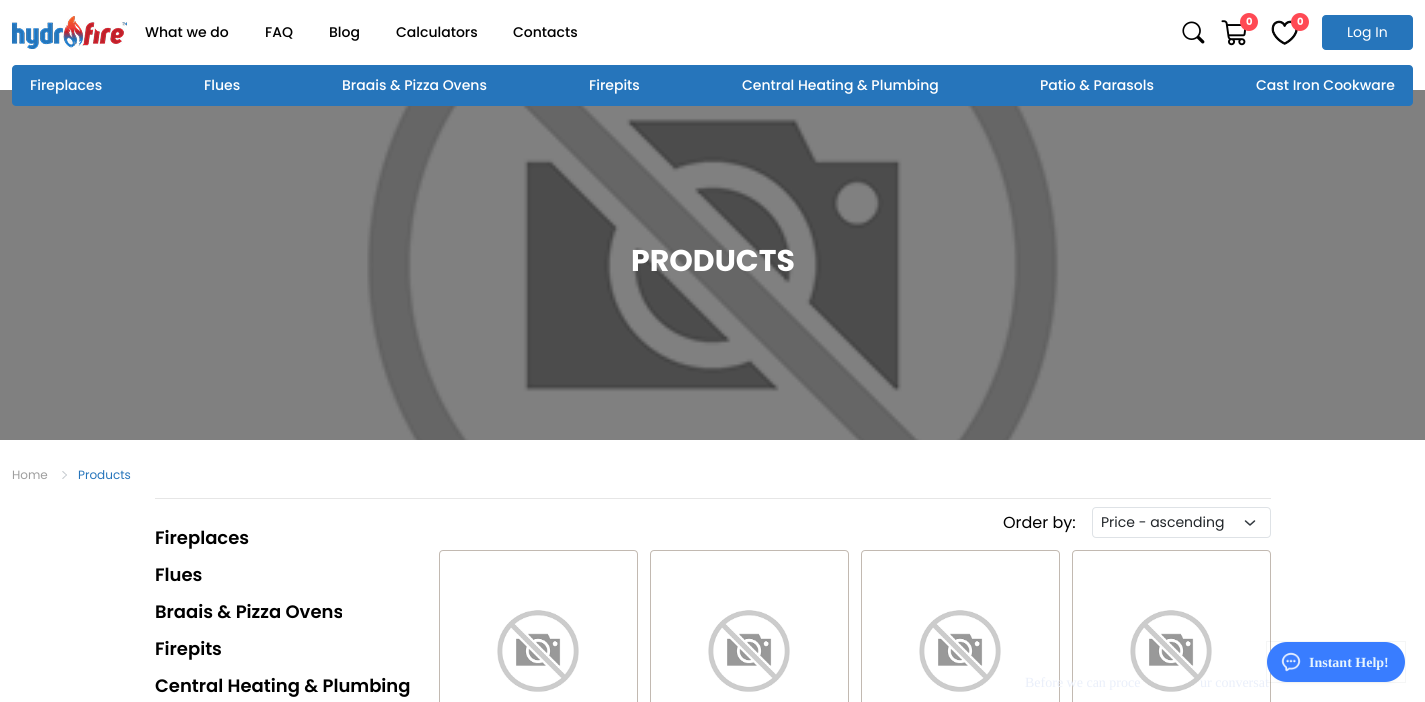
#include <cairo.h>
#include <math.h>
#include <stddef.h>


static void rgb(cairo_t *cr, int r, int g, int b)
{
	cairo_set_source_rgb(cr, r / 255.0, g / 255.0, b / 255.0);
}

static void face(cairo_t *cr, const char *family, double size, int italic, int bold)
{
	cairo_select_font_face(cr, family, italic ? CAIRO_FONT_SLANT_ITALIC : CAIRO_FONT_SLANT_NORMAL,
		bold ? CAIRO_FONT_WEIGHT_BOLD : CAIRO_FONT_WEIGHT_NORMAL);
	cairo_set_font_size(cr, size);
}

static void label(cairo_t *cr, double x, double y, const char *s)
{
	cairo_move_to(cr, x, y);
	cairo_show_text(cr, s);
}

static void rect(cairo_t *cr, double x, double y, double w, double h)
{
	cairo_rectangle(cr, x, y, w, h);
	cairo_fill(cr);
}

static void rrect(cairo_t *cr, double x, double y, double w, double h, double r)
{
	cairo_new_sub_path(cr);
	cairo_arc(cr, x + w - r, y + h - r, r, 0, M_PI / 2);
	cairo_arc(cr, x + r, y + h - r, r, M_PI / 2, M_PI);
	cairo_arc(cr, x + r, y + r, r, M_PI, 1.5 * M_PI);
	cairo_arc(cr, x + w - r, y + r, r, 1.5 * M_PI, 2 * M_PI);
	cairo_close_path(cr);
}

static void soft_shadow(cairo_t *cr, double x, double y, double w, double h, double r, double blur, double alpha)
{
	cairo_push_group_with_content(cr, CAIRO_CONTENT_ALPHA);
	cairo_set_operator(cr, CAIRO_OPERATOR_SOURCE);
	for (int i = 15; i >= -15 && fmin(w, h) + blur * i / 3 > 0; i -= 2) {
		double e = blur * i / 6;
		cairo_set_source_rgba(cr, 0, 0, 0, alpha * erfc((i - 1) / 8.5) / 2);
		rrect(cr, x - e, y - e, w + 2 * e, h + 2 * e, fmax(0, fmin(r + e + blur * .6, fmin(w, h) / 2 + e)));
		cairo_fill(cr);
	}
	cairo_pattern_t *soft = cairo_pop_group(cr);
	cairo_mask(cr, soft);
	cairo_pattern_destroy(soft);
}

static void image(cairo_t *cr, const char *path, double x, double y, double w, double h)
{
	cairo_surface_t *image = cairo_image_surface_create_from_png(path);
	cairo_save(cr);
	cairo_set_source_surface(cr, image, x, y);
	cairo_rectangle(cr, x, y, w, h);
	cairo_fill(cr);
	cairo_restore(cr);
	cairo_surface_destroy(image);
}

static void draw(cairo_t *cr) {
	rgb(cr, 255, 255, 255);
	cairo_paint(cr);
	rgb(cr, 128, 128, 128);
	rect(cr, 0, 90, 1425, 350);
	image(cr, "image0.png", 12, 16, 115, 33);
	face(cr, "Poppins Medium", 14, 0, 0);
	rgb(cr, 0, 0, 0);
	label(cr, 145, 37, "What we do");
	label(cr, 265, 37, "FAQ");
	label(cr, 329, 37, "Blog");
	label(cr, 396, 37, "Calculators");
	label(cr, 513, 37, "Contacts");
	image(cr, "image1.png", 1182, 21, 23, 23);
	image(cr, "image2.png", 1221, 20, 25, 26);
	rgb(cr, 255, 73, 84);
	cairo_arc(cr, 1249, 22, 9, 0, 2 * M_PI);
	cairo_fill(cr);
	face(cr, "Poppins", 10, 0, 1);
	rgb(cr, 255, 255, 255);
	label(cr, 1246, 25, "0");
	image(cr, "image3.png", 1271, 20, 27, 25);
	rgb(cr, 255, 73, 84);
	cairo_arc(cr, 1300, 22, 9, 0, 2 * M_PI);
	cairo_fill(cr);
	rgb(cr, 255, 255, 255);
	label(cr, 1297, 25, "0");
	rgb(cr, 38, 117, 187);
	rrect(cr, 1322.5, 15.5, 90, 34, 3.5);
	cairo_fill_preserve(cr);
	cairo_set_line_width(cr, 1);
	cairo_stroke(cr);
	face(cr, "Poppins", 14, 0, 0);
	rgb(cr, 255, 255, 255);
	label(cr, 1347, 37, "Log In");
	rgb(cr, 38, 117, 187);
	rrect(cr, 12, 65, 1401, 41, 4);
	cairo_fill(cr);
	face(cr, "Poppins Medium", 14, 0, 0);
	rgb(cr, 255, 255, 255);
	label(cr, 30, 90, "Fireplaces");
	label(cr, 204, 90, "Flues");
	label(cr, 342, 90, "Braais & Pizza Ovens");
	label(cr, 589, 90, "Firepits");
	label(cr, 742, 90, "Central Heating & Plumbing");
	label(cr, 1040, 90, "Patio & Parasols");
	label(cr, 1256, 90, "Cast Iron Cookware");
	image(cr, "image4.png", 367, 106, 692, 334);
	face(cr, "Poppins", 30, 0, 1);
	label(cr, 631, 271, "PRODUCTS");
	face(cr, "Poppins", 12, 0, 0);
	rgb(cr, 158, 158, 158);
	label(cr, 12, 479, "Home");
	rgb(cr, 191, 197, 202);
	cairo_new_path(cr);
	cairo_move_to(cr, 63, 471);
	cairo_line_to(cr, 67, 475);
	cairo_line_to(cr, 66.5, 475.5);
	cairo_line_to(cr, 62, 471.5);
	cairo_close_path(cr);
	cairo_fill(cr);
	cairo_new_path(cr);
	cairo_move_to(cr, 66.5, 474.5);
	cairo_line_to(cr, 67, 475);
	cairo_line_to(cr, 63, 479);
	cairo_line_to(cr, 62, 478.5);
	cairo_close_path(cr);
	cairo_fill(cr);
	rgb(cr, 38, 117, 187);
	label(cr, 78, 479, "Products");
	rgb(cr, 230, 230, 230);
	rect(cr, 155, 498, 1116, 1);
	face(cr, "Poppins", 16, 0, 0);
	rgb(cr, 0, 0, 0);
	label(cr, 1003, 528, "Order by:");
	cairo_new_path(cr);
	cairo_move_to(cr, 1245.5, 521);
	cairo_line_to(cr, 1250, 525);
	cairo_line_to(cr, 1254.5, 521);
	rgb(cr, 52, 58, 64);
	cairo_set_line_width(cr, 1.5);
	cairo_set_line_cap(cr, CAIRO_LINE_CAP_ROUND);
	cairo_set_line_join(cr, CAIRO_LINE_JOIN_ROUND);
	cairo_stroke(cr);
	rrect(cr, 1092.5, 507.5, 178, 30, 3.5);
	rgb(cr, 222, 226, 230);
	cairo_set_line_width(cr, 1);
	cairo_set_line_cap(cr, CAIRO_LINE_CAP_BUTT);
	cairo_set_line_join(cr, CAIRO_LINE_JOIN_MITER);
	cairo_stroke(cr);
	face(cr, "Poppins", 14, 0, 0);
	rgb(cr, 33, 37, 41);
	label(cr, 1101, 527, "Price - ascending");
	rrect(cr, 439.5, 550.5, 198, 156, 3.5);
	rgb(cr, 194, 185, 177);
	cairo_stroke(cr);
	image(cr, "image5.png", 497, 610, 82, 82);
	rrect(cr, 650.5, 550.5, 198, 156, 3.5);
	cairo_stroke(cr);
	image(cr, "image5.png", 708, 610, 82, 82);
	rrect(cr, 861.5, 550.5, 198, 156, 3.5);
	cairo_stroke(cr);
	image(cr, "image5.png", 919, 610, 82, 82);
	rrect(cr, 1072.5, 550.5, 198, 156, 3.5);
	cairo_stroke(cr);
	image(cr, "image5.png", 1130, 610, 82, 82);
	face(cr, "Poppins SemiBold", 18, 0, 0);
	rgb(cr, 0, 0, 0);
	label(cr, 155, 544, "Fireplaces");
	label(cr, 155, 581, "Flues");
	label(cr, 155, 618, "Braais & Pizza Ovens");
	label(cr, 155, 655, "Firepits");
	label(cr, 155, 692, "Central Heating & Plumbing");
	rgb(cr, 22, 26, 30);
	soft_shadow(cr, 1273, 652, 126, 28, 14, 4, 0.08);
	cairo_rectangle(cr, 1266.5, 641.5, 139, 41);
	cairo_set_source_rgba(cr, 0.086, 0.102, 0.118, 0.04);
	cairo_stroke(cr);
	rgb(cr, 57, 125, 255);
	rrect(cr, 1267, 642, 138, 40, 20);
	cairo_fill(cr);
	image(cr, "image6.png", 1281, 652, 20, 20);
	face(cr, "Liberation Serif", 14, 0, 1);
	rgb(cr, 231, 245, 253);
	label(cr, 1309, 667, "Instant Help!");
	face(cr, "Liberation Serif", 14, 0, 0);
	rgb(cr, 234, 239, 250);
	label(cr, 1025, 687, "Before we can proce");
	label(cr, 1200, 687, "ur conversat");
}

int main(void) {
	cairo_surface_t *surface = cairo_image_surface_create(CAIRO_FORMAT_RGB24, 1425, 702);
	cairo_t *cr = cairo_create(surface);
	cairo_font_options_t *options = cairo_font_options_create();
	cairo_font_options_set_hint_metrics(options, CAIRO_HINT_METRICS_OFF);
	cairo_font_options_set_hint_style(options, CAIRO_HINT_STYLE_NONE);
	cairo_set_font_options(cr, options);
	cairo_set_miter_limit(cr, 4);
	draw(cr);
	cairo_surface_write_to_png(surface, "render.png");
	cairo_font_options_destroy(options);
	cairo_destroy(cr);
	cairo_surface_destroy(surface);
	return 0;
}
